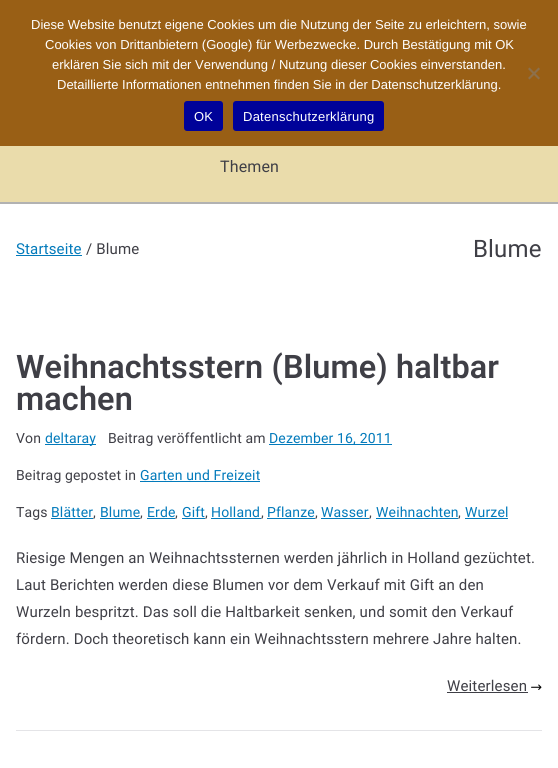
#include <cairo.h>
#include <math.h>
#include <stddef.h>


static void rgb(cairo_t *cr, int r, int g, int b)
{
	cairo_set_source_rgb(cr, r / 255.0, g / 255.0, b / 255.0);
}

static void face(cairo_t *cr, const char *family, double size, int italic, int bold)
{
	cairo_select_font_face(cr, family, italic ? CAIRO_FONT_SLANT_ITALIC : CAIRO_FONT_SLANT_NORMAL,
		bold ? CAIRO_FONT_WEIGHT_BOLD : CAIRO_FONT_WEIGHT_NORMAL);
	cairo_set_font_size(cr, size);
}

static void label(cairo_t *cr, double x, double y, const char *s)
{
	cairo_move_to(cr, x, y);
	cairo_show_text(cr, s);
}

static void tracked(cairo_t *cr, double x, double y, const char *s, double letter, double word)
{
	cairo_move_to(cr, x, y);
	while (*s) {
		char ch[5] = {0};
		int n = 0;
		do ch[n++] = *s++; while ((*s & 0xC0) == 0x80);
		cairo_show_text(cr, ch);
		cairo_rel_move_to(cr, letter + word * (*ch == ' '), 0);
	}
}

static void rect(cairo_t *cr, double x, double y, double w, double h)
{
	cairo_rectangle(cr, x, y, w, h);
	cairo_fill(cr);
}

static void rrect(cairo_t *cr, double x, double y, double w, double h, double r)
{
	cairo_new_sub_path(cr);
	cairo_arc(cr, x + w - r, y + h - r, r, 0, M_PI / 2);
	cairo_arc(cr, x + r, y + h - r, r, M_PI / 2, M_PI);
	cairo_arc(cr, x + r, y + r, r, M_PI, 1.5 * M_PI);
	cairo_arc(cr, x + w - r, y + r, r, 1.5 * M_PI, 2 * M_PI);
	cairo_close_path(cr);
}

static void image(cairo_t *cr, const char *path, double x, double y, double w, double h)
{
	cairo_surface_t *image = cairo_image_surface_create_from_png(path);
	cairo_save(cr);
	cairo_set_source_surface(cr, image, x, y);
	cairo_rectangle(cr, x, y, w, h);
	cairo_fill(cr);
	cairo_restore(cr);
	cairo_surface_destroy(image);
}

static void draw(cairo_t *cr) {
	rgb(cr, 178, 178, 178);
	cairo_paint(cr);
	rgb(cr, 153, 95, 21);
	rect(cr, 0, 0, 558, 146);
	face(cr, "Liberation Sans", 13, 0, 0);
	rgb(cr, 255, 255, 255);
	label(cr, 31, 29, "Diese Website benutzt eigene Cookies um die Nutzung der Seite zu erleichtern, sowie");
	label(cr, 45, 49, "Cookies von Drittanbietern (Google) für Werbezwecke. Durch Bestätigung mit OK");
	label(cr, 52, 69, "erklären Sie sich mit der Verwendung / Nutzung dieser Cookies einverstanden.");
	label(cr, 57, 89, "Detaillierte Informationen entnehmen finden Sie in der Datenschutzerklärung.");
	rgb(cr, 141, 112, 75);
	cairo_new_path(cr);
	cairo_move_to(cr, 538.5, 67.5);
	cairo_line_to(cr, 540, 69);
	cairo_line_to(cr, 529.5, 79.5);
	cairo_line_to(cr, 528, 78);
	cairo_close_path(cr);
	cairo_fill(cr);
	cairo_new_path(cr);
	cairo_move_to(cr, 528, 69);
	cairo_line_to(cr, 529.5, 67.5);
	cairo_line_to(cr, 540, 78);
	cairo_line_to(cr, 538.5, 79.5);
	cairo_close_path(cr);
	cairo_fill(cr);
	rgb(cr, 0, 2, 153);
	rrect(cr, 184, 101, 39, 30, 3);
	cairo_fill(cr);
	rgb(cr, 255, 255, 255);
	tracked(cr, 194, 121, "OK", 0.25, 0);
	rgb(cr, 0, 2, 153);
	rrect(cr, 233, 101, 151, 30, 3);
	cairo_fill(cr);
	rgb(cr, 255, 255, 255);
	tracked(cr, 243, 121, "Datenschutzerklärung", 0.25, 0);
	rgb(cr, 234, 220, 171);
	rect(cr, 0, 146, 558, 56);
	face(cr, "Roboto", 16, 0, 0);
	rgb(cr, 63, 63, 70);
	tracked(cr, 220, 172, "Themen", 0.15, 0);
	rgb(cr, 255, 255, 255);
	rect(cr, 0, 204, 558, 564);
	face(cr, "Roboto", 15, 0, 0);
	rgb(cr, 2, 122, 187);
	tracked(cr, 16, 254, "Startseite", 0.15, 0);
	rect(cr, 16, 255, 66, 1);
	rgb(cr, 63, 63, 70);
	tracked(cr, 86, 254, "/ Blume", 0.15, 0);
	face(cr, "Roboto", 24, 0, 0);
	tracked(cr, 473, 257, "Blume", 0.15, 0);
	rgb(cr, 228, 228, 231);
	rect(cr, 16, 730, 526, 1);
	face(cr, "Roboto SemiBold", 32.4, 0, 0);
	rgb(cr, 63, 63, 70);
	tracked(cr, 16, 378, "Weihnachtsstern (Blume) haltbar", 0.15, 0);
	tracked(cr, 16, 410, "machen", 0.15, 0);
	face(cr, "Roboto", 14, 0, 0);
	tracked(cr, 16, 443, "Von", 0.15, 0);
	rgb(cr, 2, 122, 187);
	rect(cr, 45, 444, 51, 1);
	tracked(cr, 45, 443, "deltaray", 0.15, 0);
	rgb(cr, 63, 63, 70);
	tracked(cr, 108, 443, "Beitrag veröffentlicht am", 0.15, 0);
	rgb(cr, 2, 122, 187);
	rect(cr, 269, 444, 123, 1);
	tracked(cr, 269, 443, "Dezember 16, 2011", 0.15, 0);
	rgb(cr, 63, 63, 70);
	tracked(cr, 16, 480, "Beitrag gepostet in", 0.15, 0);
	rgb(cr, 2, 122, 187);
	tracked(cr, 140, 480, "Garten und Freizeit", 0.15, 0);
	rect(cr, 140, 481, 120, 1);
	rgb(cr, 63, 63, 70);
	tracked(cr, 16, 517, "Tags", 0.15, 0);
	rgb(cr, 2, 122, 187);
	tracked(cr, 51, 517, "Blätter", 0.15, 0);
	rect(cr, 51, 518, 42, 1);
	rgb(cr, 63, 63, 70);
	tracked(cr, 93, 517, ",", 0.15, 0);
	rgb(cr, 2, 122, 187);
	tracked(cr, 100, 517, "Blume", 0.15, 0);
	rect(cr, 100, 518, 40, 1);
	rgb(cr, 63, 63, 70);
	tracked(cr, 140, 517, ",", 0.15, 0);
	rgb(cr, 2, 122, 187);
	tracked(cr, 147, 517, "Erde", 0.15, 0);
	rect(cr, 147, 518, 28, 1);
	rgb(cr, 63, 63, 70);
	tracked(cr, 175, 517, ",", 0.15, 0);
	rgb(cr, 2, 122, 187);
	tracked(cr, 182, 517, "Gift", 0.15, 0);
	rect(cr, 182, 518, 23, 1);
	rgb(cr, 63, 63, 70);
	tracked(cr, 205, 517, ",", 0.15, 0);
	rgb(cr, 2, 122, 187);
	tracked(cr, 211, 517, "Holland", 0.15, 0);
	rect(cr, 211, 518, 50, 1);
	rgb(cr, 63, 63, 70);
	tracked(cr, 261, 517, ",", 0.15, 0);
	rgb(cr, 2, 122, 187);
	tracked(cr, 267, 517, "Pflanze", 0.15, 0);
	rect(cr, 267, 518, 48, 1);
	rgb(cr, 63, 63, 70);
	tracked(cr, 315, 517, ",", 0.15, 0);
	rgb(cr, 2, 122, 187);
	tracked(cr, 321, 517, "Wasser", 0.15, 0);
	rect(cr, 321, 518, 48, 1);
	rgb(cr, 63, 63, 70);
	tracked(cr, 369, 517, ",", 0.15, 0);
	rgb(cr, 2, 122, 187);
	tracked(cr, 376, 517, "Weihnachten", 0.15, 0);
	rect(cr, 376, 518, 82, 1);
	rgb(cr, 63, 63, 70);
	tracked(cr, 458, 517, ",", 0.15, 0);
	rgb(cr, 2, 122, 187);
	tracked(cr, 465, 517, "Wurzel", 0.15, 0);
	rect(cr, 465, 518, 43, 1);
	face(cr, "Roboto", 15, 0, 0);
	rgb(cr, 63, 63, 70);
	tracked(cr, 16, 563, "Riesige Mengen an Weihnachtssternen werden jährlich in Holland gezüchtet.", 0.15, 0);
	tracked(cr, 16, 590, "Laut Berichten werden diese Blumen vor dem Verkauf mit Gift an den", 0.15, 0);
	tracked(cr, 16, 617, "Wurzeln bespritzt. Das soll die Haltbarkeit senken, und somit den Verkauf", 0.15, 0);
	tracked(cr, 16, 644, "fördern. Doch theoretisch kann ein Weihnachtsstern mehrere Jahre halten.", 0.15, 0);
	tracked(cr, 447, 691, "Weiterlesen", 0.15, 0);
	rect(cr, 447, 692, 81, 1);
	image(cr, "image0.png", 531, 684, 11, 6);
}

int main(void) {
	cairo_surface_t *surface = cairo_image_surface_create(CAIRO_FORMAT_RGB24, 558, 768);
	cairo_t *cr = cairo_create(surface);
	cairo_font_options_t *options = cairo_font_options_create();
	cairo_font_options_set_hint_metrics(options, CAIRO_HINT_METRICS_OFF);
	cairo_font_options_set_hint_style(options, CAIRO_HINT_STYLE_NONE);
	cairo_set_font_options(cr, options);
	cairo_set_miter_limit(cr, 4);
	draw(cr);
	cairo_surface_write_to_png(surface, "render.png");
	cairo_font_options_destroy(options);
	cairo_destroy(cr);
	cairo_surface_destroy(surface);
	return 0;
}
